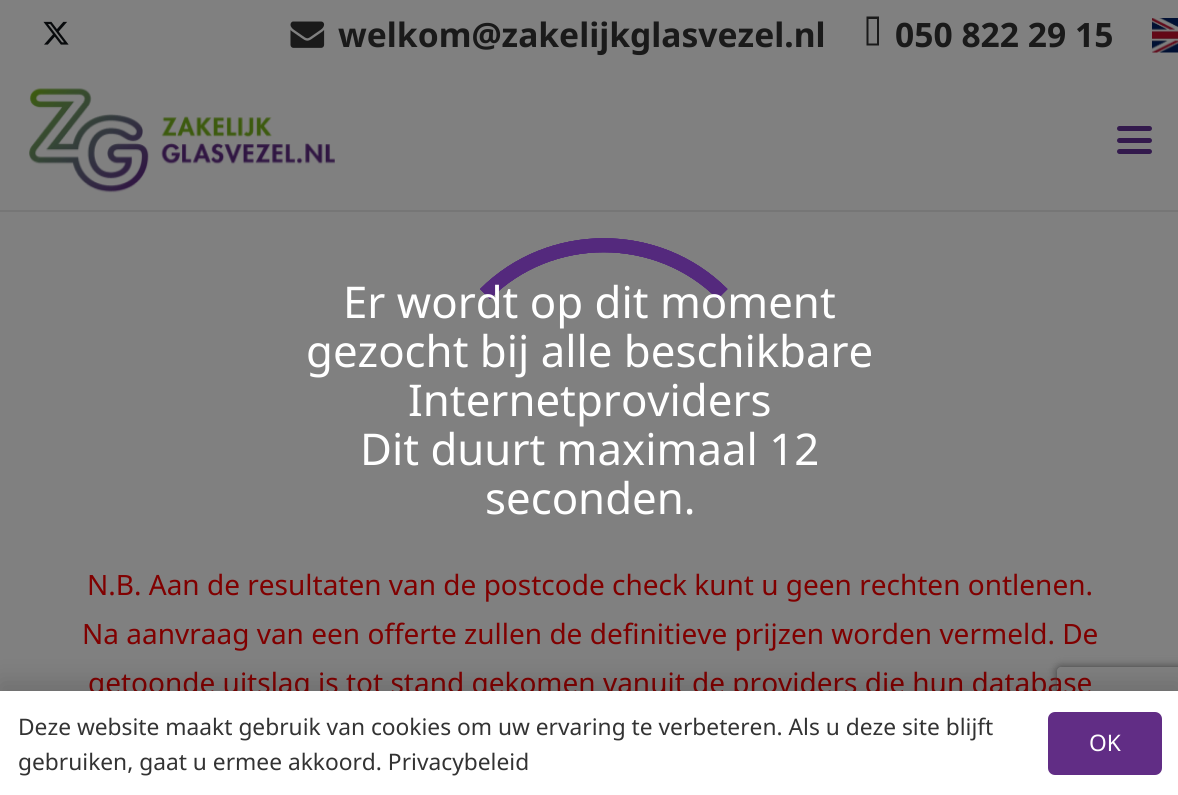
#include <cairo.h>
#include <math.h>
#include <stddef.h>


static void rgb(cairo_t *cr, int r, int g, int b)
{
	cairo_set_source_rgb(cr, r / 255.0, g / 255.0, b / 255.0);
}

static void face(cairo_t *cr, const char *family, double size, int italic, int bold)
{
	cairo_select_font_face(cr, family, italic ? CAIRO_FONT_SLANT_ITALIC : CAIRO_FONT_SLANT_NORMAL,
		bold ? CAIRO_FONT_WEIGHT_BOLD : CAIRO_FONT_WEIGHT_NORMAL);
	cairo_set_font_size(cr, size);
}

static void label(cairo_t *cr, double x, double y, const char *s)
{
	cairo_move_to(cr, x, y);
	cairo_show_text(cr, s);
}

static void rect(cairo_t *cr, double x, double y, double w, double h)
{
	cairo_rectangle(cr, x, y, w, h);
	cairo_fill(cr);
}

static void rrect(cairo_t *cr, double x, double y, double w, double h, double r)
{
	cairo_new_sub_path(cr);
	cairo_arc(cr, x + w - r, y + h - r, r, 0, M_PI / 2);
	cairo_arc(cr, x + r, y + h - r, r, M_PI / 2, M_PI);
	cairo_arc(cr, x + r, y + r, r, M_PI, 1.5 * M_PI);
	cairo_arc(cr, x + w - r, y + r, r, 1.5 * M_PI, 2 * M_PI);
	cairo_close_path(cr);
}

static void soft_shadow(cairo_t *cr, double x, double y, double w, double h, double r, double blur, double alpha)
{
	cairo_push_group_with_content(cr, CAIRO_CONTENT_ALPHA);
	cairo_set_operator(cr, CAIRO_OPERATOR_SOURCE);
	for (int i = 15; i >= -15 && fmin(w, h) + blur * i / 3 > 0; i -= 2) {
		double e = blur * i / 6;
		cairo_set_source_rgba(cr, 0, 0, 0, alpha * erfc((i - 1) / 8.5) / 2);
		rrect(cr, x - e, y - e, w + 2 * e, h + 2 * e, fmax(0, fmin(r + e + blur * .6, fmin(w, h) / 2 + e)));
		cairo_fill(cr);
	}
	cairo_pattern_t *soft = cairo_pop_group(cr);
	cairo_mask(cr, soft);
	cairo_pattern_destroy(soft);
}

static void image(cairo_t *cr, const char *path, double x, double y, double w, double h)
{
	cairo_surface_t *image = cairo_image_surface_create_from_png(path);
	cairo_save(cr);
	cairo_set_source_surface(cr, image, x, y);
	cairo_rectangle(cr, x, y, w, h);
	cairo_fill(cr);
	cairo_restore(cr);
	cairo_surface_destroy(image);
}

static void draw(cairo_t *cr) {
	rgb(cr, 128, 128, 128);
	cairo_paint(cr);
	image(cr, "image0.png", 43, 21, 26, 24);
	image(cr, "image1.png", 290, 21, 35, 27);
	face(cr, "Noto Sans", 33.6, 0, 1);
	rgb(cr, 26, 26, 26);
	label(cr, 338, 47, "welkom@zakelijkglasvezel.nl");
	cairo_new_path(cr);
	cairo_move_to(cr, 868.5, 43.5);
	cairo_line_to(cr, 868.5, 19);
	cairo_line_to(cr, 877, 19);
	cairo_line_to(cr, 877, 43.5);
	cairo_close_path(cr);
	cairo_move_to(cr, 866.5, 45.5);
	cairo_line_to(cr, 879, 45.5);
	cairo_line_to(cr, 879, 16.5);
	cairo_line_to(cr, 866.5, 16.5);
	cairo_close_path(cr);
	cairo_fill(cr);
	label(cr, 895, 47, "050 822 29 15");
	image(cr, "image2.png", 1152, 18, 26, 35);
	rgb(cr, 118, 118, 118);
	cairo_new_path(cr);
	cairo_move_to(cr, 0, 210);
	cairo_line_to(cr, 0, 212);
	cairo_line_to(cr, 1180, 212);
	cairo_line_to(cr, 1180, 72);
	cairo_line_to(cr, 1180, 210);
	cairo_close_path(cr);
	cairo_fill(cr);
	image(cr, "image3.png", 29, 88, 306, 105);
	rgb(cr, 51, 26, 77);
	rrect(cr, 1117, 138, 35, 5, 2.5);
	cairo_fill(cr);
	rrect(cr, 1117, 126, 35, 5, 2.5);
	cairo_fill(cr);
	rrect(cr, 1117, 149, 35, 5, 2.5);
	cairo_fill(cr);
	face(cr, "Noto Sans", 28, 0, 0);
	rgb(cr, 128, 0, 0);
	label(cr, 87, 595, "N.B. Aan de resultaten van de postcode check kunt u geen rechten ontlenen.");
	label(cr, 82, 644, "Na aanvraag van een offerte zullen de definitieve prijzen worden vermeld. De");
	label(cr, 88, 693, "getoonde uitslag is tot stand gekomen vanuit de providers die hun database");
	cairo_new_path(cr);
	cairo_move_to(cr, 485, 294);
	cairo_curve_to(cr, 550, 229, 657.5, 229, 722.5, 294);
	rgb(cr, 84, 41, 125);
	cairo_set_line_width(cr, 14);
	cairo_stroke(cr);
	cairo_new_path(cr);
	cairo_move_to(cr, 485, 294);
	cairo_curve_to(cr, 550, 229, 657.5, 229, 722.5, 294);
	cairo_stroke(cr);
	cairo_new_path(cr);
	cairo_move_to(cr, 485, 294);
	cairo_curve_to(cr, 550, 229, 657.5, 229, 722.5, 294);
	cairo_stroke(cr);
	cairo_new_path(cr);
	cairo_move_to(cr, 485, 294);
	cairo_curve_to(cr, 550, 229, 657.5, 229, 722.5, 294);
	cairo_stroke(cr);
	face(cr, "Noto Sans", 43.75, 0, 0);
	rgb(cr, 255, 255, 255);
	label(cr, 343, 318, "Er wordt op dit moment");
	label(cr, 306, 367, "gezocht bij alle beschikbare");
	label(cr, 408, 416, "Internetproviders");
	label(cr, 360, 465, "Dit duurt maximaal 12");
	label(cr, 485, 514, "seconden.");
	cairo_save(cr);
	cairo_set_fill_rule(cr, CAIRO_FILL_RULE_EVEN_ODD);
	cairo_new_path(cr);
	cairo_move_to(cr, 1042, 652);
	cairo_line_to(cr, 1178, 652);
	cairo_line_to(cr, 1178, 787);
	cairo_line_to(cr, 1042, 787);
	cairo_close_path(cr);
	cairo_move_to(cr, 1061, 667);
	cairo_line_to(cr, 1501, 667);
	cairo_curve_to(cr, 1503, 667, 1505, 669, 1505, 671);
	cairo_line_to(cr, 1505, 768);
	cairo_curve_to(cr, 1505, 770, 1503, 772, 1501, 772);
	cairo_line_to(cr, 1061, 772);
	cairo_curve_to(cr, 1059, 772, 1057, 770, 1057, 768);
	cairo_line_to(cr, 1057, 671);
	cairo_curve_to(cr, 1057, 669, 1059, 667, 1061, 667);
	cairo_close_path(cr);
	cairo_clip(cr);
	rgb(cr, 64, 64, 64);
	soft_shadow(cr, 1057, 667, 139, 105, 4, 4.5, 1);
	cairo_restore(cr);
	rgb(cr, 0, 0, 0);
	soft_shadow(cr, 0, 683, 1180, 105, 0, 13, 0.15);
	rgb(cr, 255, 255, 255);
	rect(cr, 0, 691, 1178, 104);
	face(cr, "Noto Sans", 22.75, 0, 0);
	rgb(cr, 51, 51, 51);
	label(cr, 18, 735, "Deze website maakt gebruik van cookies om uw ervaring te verbeteren. Als u deze site blijft");
	label(cr, 18, 770, "gebruiken, gaat u ermee akkoord. Privacybeleid");
	rgb(cr, 97, 45, 133);
	rrect(cr, 1048, 712, 114, 63, 7);
	cairo_fill(cr);
	rgb(cr, 255, 255, 255);
	label(cr, 1089, 751, "OK");
}

int main(void) {
	cairo_surface_t *surface = cairo_image_surface_create(CAIRO_FORMAT_RGB24, 1178, 795);
	cairo_t *cr = cairo_create(surface);
	cairo_font_options_t *options = cairo_font_options_create();
	cairo_font_options_set_hint_metrics(options, CAIRO_HINT_METRICS_OFF);
	cairo_font_options_set_hint_style(options, CAIRO_HINT_STYLE_NONE);
	cairo_set_font_options(cr, options);
	cairo_set_miter_limit(cr, 4);
	draw(cr);
	cairo_surface_write_to_png(surface, "render.png");
	cairo_font_options_destroy(options);
	cairo_destroy(cr);
	cairo_surface_destroy(surface);
	return 0;
}
